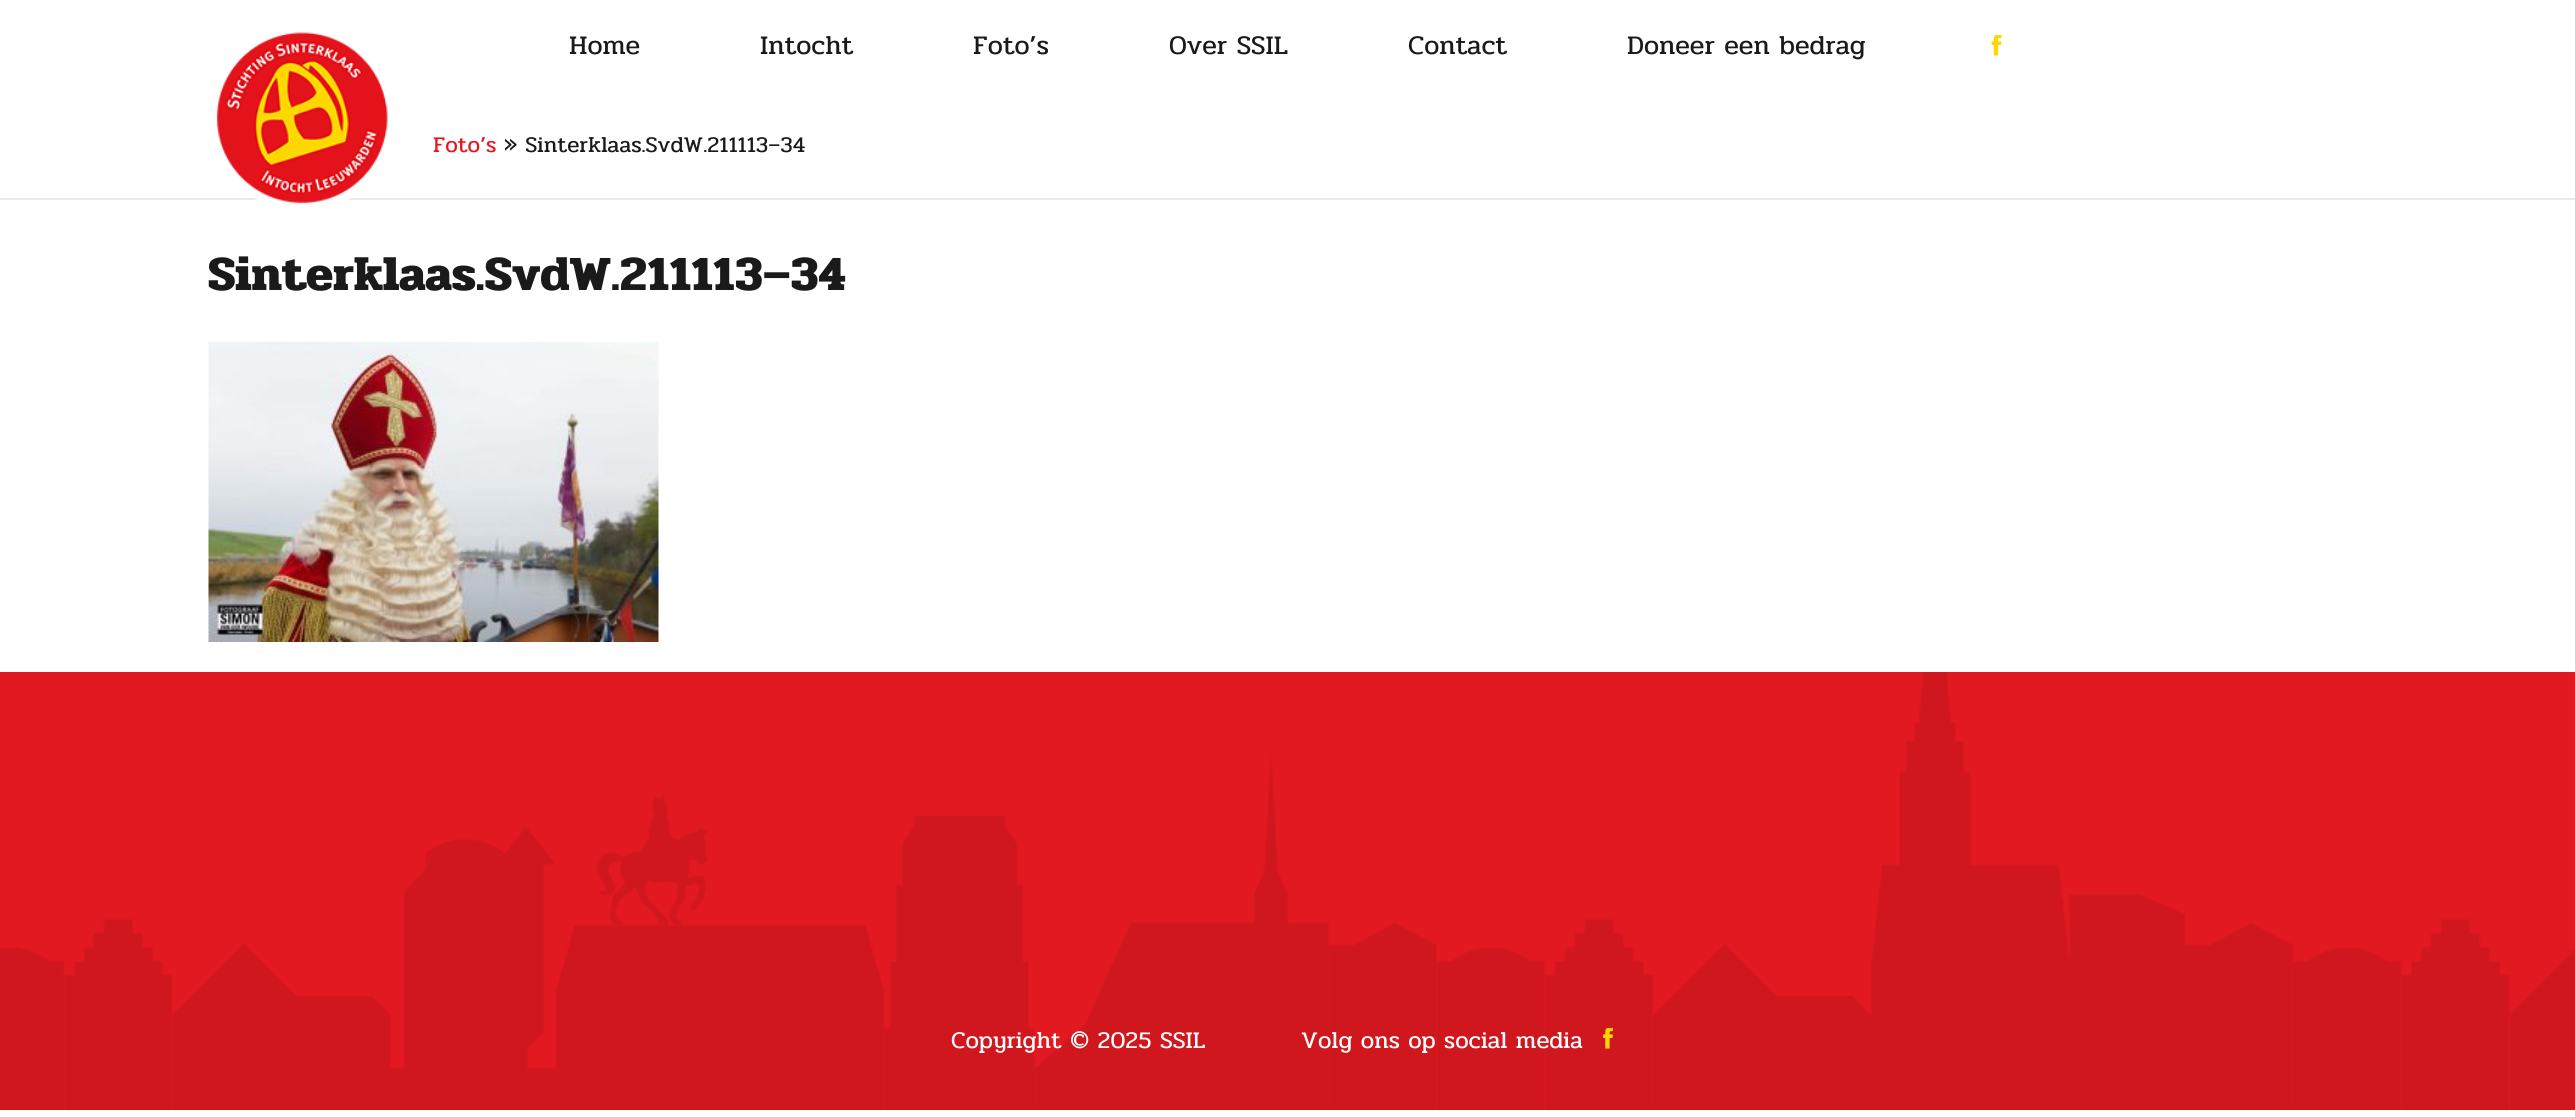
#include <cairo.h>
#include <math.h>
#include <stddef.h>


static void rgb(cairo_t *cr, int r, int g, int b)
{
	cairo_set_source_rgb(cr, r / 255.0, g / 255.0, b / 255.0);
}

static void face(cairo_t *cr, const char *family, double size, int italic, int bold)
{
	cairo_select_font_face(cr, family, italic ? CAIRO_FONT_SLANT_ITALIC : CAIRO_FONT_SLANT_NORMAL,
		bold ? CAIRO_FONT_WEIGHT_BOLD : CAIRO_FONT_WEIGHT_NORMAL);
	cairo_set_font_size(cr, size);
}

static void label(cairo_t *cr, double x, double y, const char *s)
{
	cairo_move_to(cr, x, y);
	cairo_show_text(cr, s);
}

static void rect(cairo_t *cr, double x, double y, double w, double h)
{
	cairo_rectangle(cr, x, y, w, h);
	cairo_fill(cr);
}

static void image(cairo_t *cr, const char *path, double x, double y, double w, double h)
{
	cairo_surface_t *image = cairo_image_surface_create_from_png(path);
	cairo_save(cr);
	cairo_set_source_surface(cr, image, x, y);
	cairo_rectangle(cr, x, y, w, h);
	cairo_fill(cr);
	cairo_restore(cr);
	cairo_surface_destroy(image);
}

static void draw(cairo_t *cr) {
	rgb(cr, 255, 255, 255);
	cairo_paint(cr);
	rgb(cr, 233, 233, 233);
	rect(cr, 0, 198, 2575, 2);
	image(cr, "image0.png", 216, 32, 172, 172);
	face(cr, "Pridi", 27, 0, 0);
	rgb(cr, 26, 26, 26);
	label(cr, 569, 54, "Home");
	label(cr, 760, 54, "Intocht");
	label(cr, 973, 54, "Foto’s");
	label(cr, 1169, 54, "Over SSIL");
	label(cr, 1408, 54, "Contact");
	label(cr, 1627, 54, "Doneer een bedrag");
	image(cr, "image1.png", 1991, 35, 11, 21);
	face(cr, "Pridi", 22.5, 0, 0);
	rgb(cr, 227, 25, 33);
	label(cr, 433, 152, "Foto’s");
	rgb(cr, 26, 26, 26);
	label(cr, 504, 152, "» Sinterklaas.SvdW.211113–34");
	face(cr, "Pridi", 49.5, 0, 1);
	label(cr, 208, 290, "Sinterklaas.SvdW.211113–34");
	image(cr, "image2.png", 208, 342, 451, 300);
	rgb(cr, 227, 25, 33);
	rect(cr, 0, 672, 2575, 438);
	image(cr, "image3.png", 0, 672, 2575, 438);
	face(cr, "Pridi", 24, 0, 0);
	rgb(cr, 255, 255, 255);
	label(cr, 951, 1048, "Copyright © 2025 SSIL");
	label(cr, 1301, 1048, "Volg ons op social media");
	image(cr, "image4.png", 1603, 1028, 10, 21);
}

int main(void) {
	cairo_surface_t *surface = cairo_image_surface_create(CAIRO_FORMAT_RGB24, 2575, 1117);
	cairo_t *cr = cairo_create(surface);
	cairo_font_options_t *options = cairo_font_options_create();
	cairo_font_options_set_hint_metrics(options, CAIRO_HINT_METRICS_OFF);
	cairo_font_options_set_hint_style(options, CAIRO_HINT_STYLE_NONE);
	cairo_set_font_options(cr, options);
	cairo_set_miter_limit(cr, 4);
	draw(cr);
	cairo_surface_write_to_png(surface, "render.png");
	cairo_font_options_destroy(options);
	cairo_destroy(cr);
	cairo_surface_destroy(surface);
	return 0;
}
